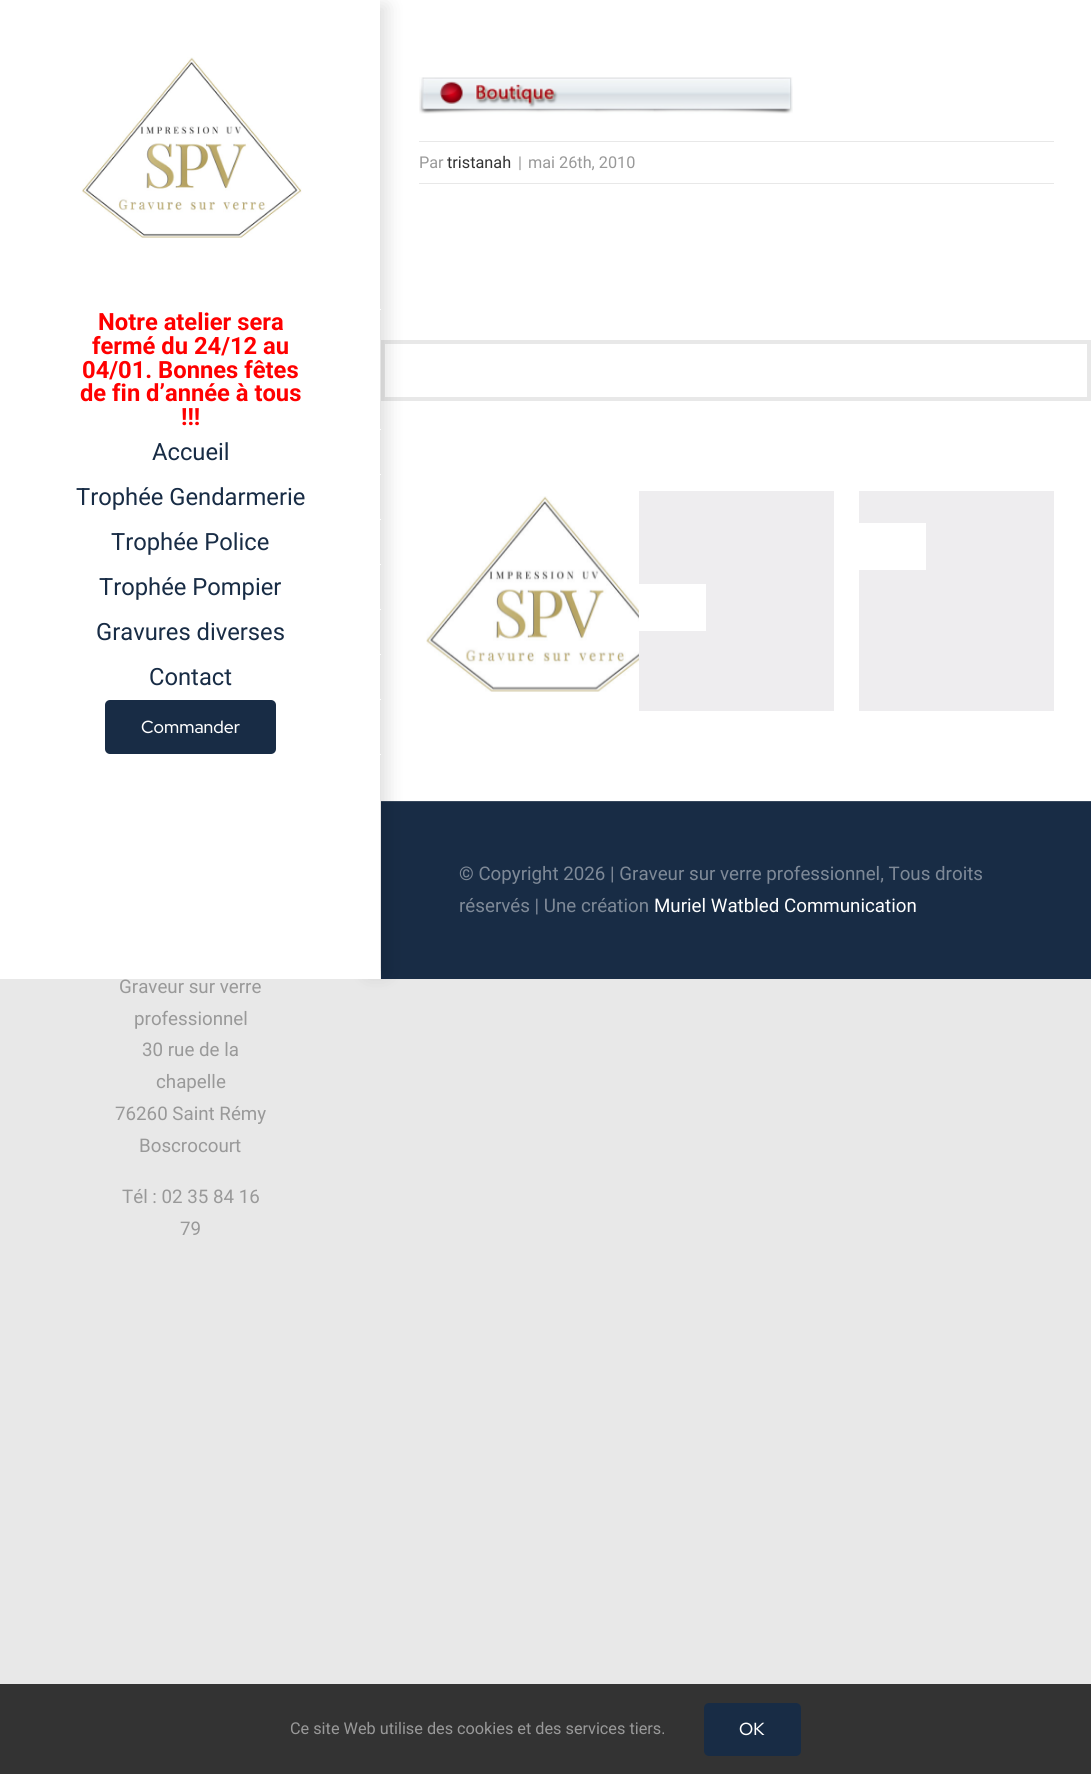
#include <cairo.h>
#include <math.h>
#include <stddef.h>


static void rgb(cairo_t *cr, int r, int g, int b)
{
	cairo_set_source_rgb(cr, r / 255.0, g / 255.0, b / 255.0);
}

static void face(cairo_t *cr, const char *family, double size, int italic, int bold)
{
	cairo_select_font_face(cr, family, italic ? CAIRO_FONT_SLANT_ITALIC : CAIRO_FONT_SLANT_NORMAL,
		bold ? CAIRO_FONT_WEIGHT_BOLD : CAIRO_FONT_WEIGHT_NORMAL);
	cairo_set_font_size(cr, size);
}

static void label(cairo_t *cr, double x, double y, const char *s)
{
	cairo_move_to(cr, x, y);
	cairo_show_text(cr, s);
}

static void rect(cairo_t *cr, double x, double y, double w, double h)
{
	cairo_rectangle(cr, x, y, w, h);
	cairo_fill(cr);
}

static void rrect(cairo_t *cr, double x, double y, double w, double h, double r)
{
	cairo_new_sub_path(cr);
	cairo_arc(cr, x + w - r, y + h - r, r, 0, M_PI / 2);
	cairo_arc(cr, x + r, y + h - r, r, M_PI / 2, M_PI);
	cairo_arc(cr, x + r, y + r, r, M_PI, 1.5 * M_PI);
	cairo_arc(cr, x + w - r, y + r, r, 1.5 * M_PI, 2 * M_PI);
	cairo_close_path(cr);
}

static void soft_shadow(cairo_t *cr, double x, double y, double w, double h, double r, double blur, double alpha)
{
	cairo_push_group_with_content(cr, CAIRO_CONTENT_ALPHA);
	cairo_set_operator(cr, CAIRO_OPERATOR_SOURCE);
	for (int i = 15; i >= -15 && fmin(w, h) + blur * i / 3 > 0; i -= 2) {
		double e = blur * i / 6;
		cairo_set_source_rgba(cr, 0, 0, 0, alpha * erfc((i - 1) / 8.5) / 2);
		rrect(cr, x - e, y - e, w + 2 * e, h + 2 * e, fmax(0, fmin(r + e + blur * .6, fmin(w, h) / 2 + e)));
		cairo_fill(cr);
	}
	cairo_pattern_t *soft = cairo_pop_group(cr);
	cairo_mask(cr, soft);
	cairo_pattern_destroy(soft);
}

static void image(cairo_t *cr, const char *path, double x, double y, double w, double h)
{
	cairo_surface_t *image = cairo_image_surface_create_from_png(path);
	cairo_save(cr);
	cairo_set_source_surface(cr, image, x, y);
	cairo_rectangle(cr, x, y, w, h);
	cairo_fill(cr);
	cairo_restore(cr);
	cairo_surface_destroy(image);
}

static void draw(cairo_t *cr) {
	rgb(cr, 232, 232, 232);
	cairo_paint(cr);
	rgb(cr, 255, 255, 255);
	rect(cr, 381, 0, 710, 801);
	image(cr, "image0.png", 419, 77, 374, 37);
	rgb(cr, 232, 232, 232);
	rect(cr, 419, 141, 635, 1);
	rect(cr, 419, 183, 635, 1);
	face(cr, "Roboto", 16.25, 0, 0);
	rgb(cr, 153, 153, 153);
	label(cr, 419, 168, "Par");
	rgb(cr, 51, 51, 51);
	label(cr, 447, 168, "tristanah");
	rgb(cr, 153, 153, 153);
	label(cr, 518, 168, "|");
	label(cr, 528, 168, "mai 26th, 2010");
	rgb(cr, 255, 255, 255);
	rect(cr, 0, 0, 381, 979);
	cairo_rectangle(cr, 383, 342, 706, 57);
	rgb(cr, 232, 232, 232);
	cairo_set_line_width(cr, 4);
	cairo_stroke(cr);
	rgb(cr, 24, 44, 69);
	rect(cr, 381, 802, 710, 177);
	rgb(cr, 55, 72, 93);
	rect(cr, 381, 801, 710, 1);
	cairo_save(cr);
	cairo_set_fill_rule(cr, CAIRO_FILL_RULE_EVEN_ODD);
	cairo_new_path(cr);
	cairo_move_to(cr, 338, 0);
	cairo_line_to(cr, 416, 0);
	cairo_line_to(cr, 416, 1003);
	cairo_line_to(cr, 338, 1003);
	cairo_close_path(cr);
	cairo_move_to(cr, 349, 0);
	cairo_line_to(cr, 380, 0);
	cairo_line_to(cr, 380, 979);
	cairo_line_to(cr, 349, 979);
	cairo_close_path(cr);
	cairo_clip(cr);
	rgb(cr, 0, 0, 0);
	soft_shadow(cr, 368, 6, 18, 967, 0, 9.5, 0.14);
	cairo_restore(cr);
	image(cr, "image1.png", 82, 57, 220, 181);
	rgb(cr, 255, 255, 255);
	rect(cr, 380, 309, 1, 1);
	rect(cr, 380, 429, 1, 1);
	face(cr, "Roboto", 23.75, 0, 1);
	rgb(cr, 255, 0, 0);
	label(cr, 98, 330, "Notre atelier sera");
	label(cr, 92, 354, "fermé du 24/12 au");
	label(cr, 82, 378, "04/01. Bonnes fêtes");
	label(cr, 80, 401, "de fin d’année à tous");
	label(cr, 181, 425, "!!!");
	rgb(cr, 255, 255, 255);
	rect(cr, 380, 474, 1, 1);
	face(cr, "Roboto", 23.75, 0, 0);
	rgb(cr, 24, 44, 69);
	label(cr, 152, 460, "Accueil");
	rgb(cr, 255, 255, 255);
	rect(cr, 380, 519, 1, 1);
	rgb(cr, 24, 44, 69);
	label(cr, 76, 505, "Trophée Gendarmerie");
	rgb(cr, 255, 255, 255);
	rect(cr, 380, 564, 1, 1);
	rgb(cr, 24, 44, 69);
	label(cr, 111, 550, "Trophée Police");
	rgb(cr, 255, 255, 255);
	rect(cr, 380, 609, 1, 1);
	rgb(cr, 24, 44, 69);
	label(cr, 99, 595, "Trophée Pompier");
	rgb(cr, 255, 255, 255);
	rect(cr, 380, 654, 1, 1);
	rgb(cr, 24, 44, 69);
	label(cr, 96, 640, "Gravures diverses");
	rgb(cr, 255, 255, 255);
	rect(cr, 380, 699, 1, 1);
	rgb(cr, 24, 44, 69);
	label(cr, 149, 685, "Contact");
	rgb(cr, 255, 255, 255);
	rect(cr, 380, 754, 1, 1);
	rgb(cr, 24, 44, 69);
	rrect(cr, 105, 700, 171, 54, 5);
	cairo_fill(cr);
	face(cr, "Red Hat Display Medium", 17.5, 0, 0);
	rgb(cr, 255, 255, 255);
	label(cr, 141, 733, "Commander");
	face(cr, "Roboto", 18.75, 0, 0);
	rgb(cr, 153, 153, 153);
	label(cr, 119, 993, "Graveur sur verre");
	label(cr, 134, 1025, "professionnel");
	label(cr, 142, 1056, "30 rue de la");
	label(cr, 156, 1088, "chapelle");
	label(cr, 115, 1120, "76260 Saint Rémy");
	label(cr, 139, 1152, "Boscrocourt");
	label(cr, 122, 1203, "Tél : 02 35 84 16");
	label(cr, 180, 1235, "79");
	image(cr, "image2.png", 426, 496, 213, 196);
	rgb(cr, 238, 237, 239);
	rect(cr, 639, 491, 195, 220);
	rgb(cr, 255, 255, 255);
	rect(cr, 639, 584, 67, 47);
	rgb(cr, 238, 237, 239);
	rect(cr, 859, 491, 195, 220);
	rgb(cr, 255, 255, 255);
	rect(cr, 859, 523, 67, 47);
	rgb(cr, 126, 137, 151);
	label(cr, 459, 880, "© Copyright 2026 | Graveur sur verre professionnel, Tous droits");
	label(cr, 459, 912, "réservés | Une création");
	rgb(cr, 255, 255, 255);
	label(cr, 654, 912, "Muriel Watbled Communication");
	rgb(cr, 51, 51, 51);
	rect(cr, 0, 1684, 1091, 90);
	face(cr, "Roboto", 16.25, 0, 0);
	rgb(cr, 153, 153, 153);
	label(cr, 290, 1734, "Ce site Web utilise des cookies et des services tiers.");
	rgb(cr, 24, 44, 69);
	rrect(cr, 704, 1703, 97, 53, 5);
	cairo_fill(cr);
	face(cr, "Red Hat Display Medium", 17.5, 0, 0);
	rgb(cr, 255, 255, 255);
	label(cr, 739, 1735, "OK");
}

int main(void) {
	cairo_surface_t *surface = cairo_image_surface_create(CAIRO_FORMAT_RGB24, 1091, 1774);
	cairo_t *cr = cairo_create(surface);
	cairo_font_options_t *options = cairo_font_options_create();
	cairo_font_options_set_hint_metrics(options, CAIRO_HINT_METRICS_OFF);
	cairo_font_options_set_hint_style(options, CAIRO_HINT_STYLE_NONE);
	cairo_set_font_options(cr, options);
	cairo_set_miter_limit(cr, 4);
	draw(cr);
	cairo_surface_write_to_png(surface, "render.png");
	cairo_font_options_destroy(options);
	cairo_destroy(cr);
	cairo_surface_destroy(surface);
	return 0;
}
